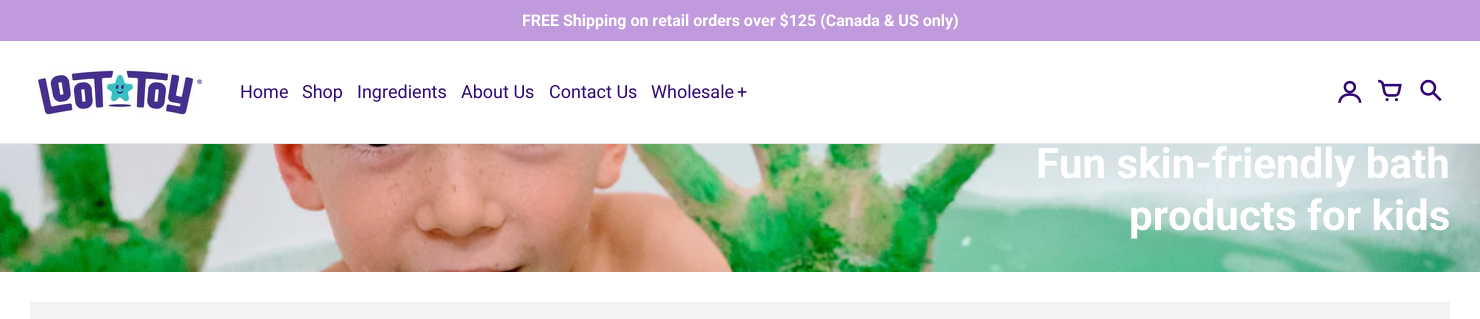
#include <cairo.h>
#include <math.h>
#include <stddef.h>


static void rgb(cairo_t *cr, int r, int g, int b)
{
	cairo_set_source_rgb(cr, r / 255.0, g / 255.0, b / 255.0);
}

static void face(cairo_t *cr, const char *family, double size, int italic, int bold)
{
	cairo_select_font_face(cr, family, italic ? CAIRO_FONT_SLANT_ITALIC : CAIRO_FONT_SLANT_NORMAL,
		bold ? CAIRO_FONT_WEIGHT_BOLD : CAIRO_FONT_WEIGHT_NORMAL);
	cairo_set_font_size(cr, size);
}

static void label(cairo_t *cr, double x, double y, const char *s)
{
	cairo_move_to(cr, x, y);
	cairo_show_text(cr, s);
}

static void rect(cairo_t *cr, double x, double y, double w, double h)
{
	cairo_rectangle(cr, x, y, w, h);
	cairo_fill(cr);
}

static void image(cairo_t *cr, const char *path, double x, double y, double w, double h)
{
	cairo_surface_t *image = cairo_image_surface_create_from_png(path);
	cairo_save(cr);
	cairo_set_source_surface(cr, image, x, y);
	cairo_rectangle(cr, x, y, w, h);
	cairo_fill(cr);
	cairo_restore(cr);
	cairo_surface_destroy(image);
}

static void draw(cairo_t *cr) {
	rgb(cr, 255, 255, 255);
	cairo_paint(cr);
	rgb(cr, 193, 154, 222);
	rect(cr, 0, 0, 1480, 41);
	face(cr, "Roboto", 16, 0, 1);
	rgb(cr, 255, 255, 255);
	label(cr, 522, 26, "FREE Shipping on retail orders over $125 (Canada & US only)");
	rgb(cr, 234, 230, 241);
	rect(cr, 0, 143, 1480, 1);
	image(cr, "image0.png", 38, 69, 164, 48);
	face(cr, "Roboto", 18, 0, 0);
	rgb(cr, 49, 6, 116);
	label(cr, 240, 98, "Home");
	label(cr, 302, 98, "Shop");
	label(cr, 357, 98, "Ingredients");
	label(cr, 461, 98, "About Us");
	label(cr, 549, 98, "Contact Us");
	label(cr, 651, 98, "Wholesale");
	label(cr, 737, 98, "+");
	image(cr, "image1.png", 1338, 80, 24, 23);
	image(cr, "image2.png", 1378, 79, 24, 23);
	image(cr, "image3.png", 1420, 79, 22, 23);
	image(cr, "image4.png", 0, 144, 1480, 128);
	face(cr, "Roboto", 42, 0, 1);
	rgb(cr, 255, 255, 255);
	label(cr, 1036, 178, "Fun skin-friendly bath");
	label(cr, 1129, 230, "products for kids");
	rgb(cr, 243, 243, 243);
	rect(cr, 30, 302, 1420, 17);
}

int main(void) {
	cairo_surface_t *surface = cairo_image_surface_create(CAIRO_FORMAT_RGB24, 1480, 319);
	cairo_t *cr = cairo_create(surface);
	cairo_font_options_t *options = cairo_font_options_create();
	cairo_font_options_set_hint_metrics(options, CAIRO_HINT_METRICS_OFF);
	cairo_font_options_set_hint_style(options, CAIRO_HINT_STYLE_NONE);
	cairo_set_font_options(cr, options);
	cairo_set_miter_limit(cr, 4);
	draw(cr);
	cairo_surface_write_to_png(surface, "render.png");
	cairo_font_options_destroy(options);
	cairo_destroy(cr);
	cairo_surface_destroy(surface);
	return 0;
}
